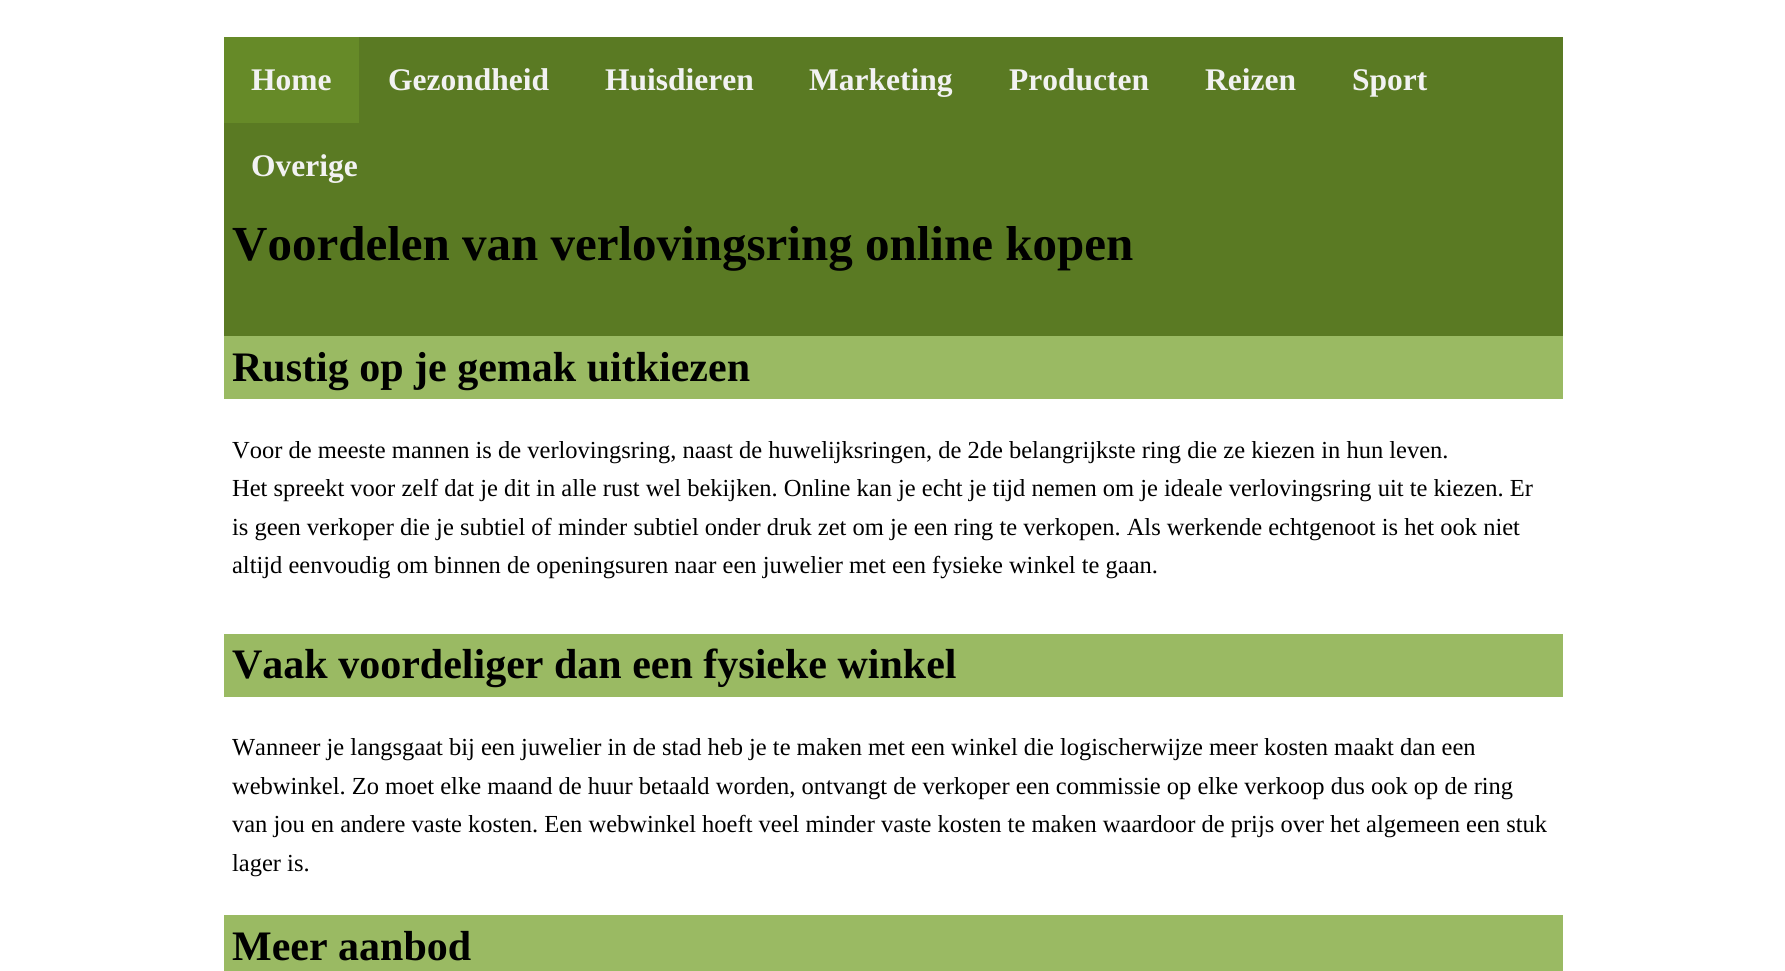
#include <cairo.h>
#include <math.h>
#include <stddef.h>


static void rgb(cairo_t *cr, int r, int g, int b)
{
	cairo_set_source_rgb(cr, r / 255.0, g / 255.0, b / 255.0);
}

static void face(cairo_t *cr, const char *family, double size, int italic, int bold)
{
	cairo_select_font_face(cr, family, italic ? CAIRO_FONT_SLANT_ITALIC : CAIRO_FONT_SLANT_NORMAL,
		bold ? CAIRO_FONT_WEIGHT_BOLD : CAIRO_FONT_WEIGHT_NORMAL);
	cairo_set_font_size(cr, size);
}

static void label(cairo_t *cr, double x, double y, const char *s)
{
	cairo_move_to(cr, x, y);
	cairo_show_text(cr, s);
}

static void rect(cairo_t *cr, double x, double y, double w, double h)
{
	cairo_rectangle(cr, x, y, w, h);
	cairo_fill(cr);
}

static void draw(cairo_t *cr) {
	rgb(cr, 255, 255, 255);
	cairo_paint(cr);
	rgb(cr, 90, 122, 35);
	rect(cr, 224, 37, 1339, 299);
	rgb(cr, 102, 138, 40);
	rect(cr, 224, 37, 135, 86);
	face(cr, "Liberation Serif", 31.5, 0, 1);
	rgb(cr, 242, 242, 242);
	label(cr, 251, 90, "Home");
	label(cr, 388, 90, "Gezondheid");
	label(cr, 605, 90, "Huisdieren");
	label(cr, 809, 90, "Marketing");
	label(cr, 1009, 90, "Producten");
	label(cr, 1205, 90, "Reizen");
	label(cr, 1352, 90, "Sport");
	label(cr, 251, 176, "Overige");
	face(cr, "Liberation Serif", 49, 0, 1);
	rgb(cr, 0, 0, 0);
	label(cr, 232, 260, "Voordelen van verlovingsring online kopen");
	rgb(cr, 154, 186, 99);
	rect(cr, 224, 336, 1339, 63);
	face(cr, "Liberation Serif", 42, 0, 1);
	rgb(cr, 0, 0, 0);
	label(cr, 232, 381, "Rustig op je gemak uitkiezen");
	face(cr, "Liberation Serif", 24.5, 0, 0);
	label(cr, 232, 458, "Voor de meeste mannen is de verlovingsring, naast de huwelijksringen, de 2de belangrijkste ring die ze kiezen in hun leven.");
	label(cr, 232, 496, "Het spreekt voor zelf dat je dit in alle rust wel bekijken. Online kan je echt je tijd nemen om je ideale verlovingsring uit te kiezen. Er");
	label(cr, 232, 535, "is geen verkoper die je subtiel of minder subtiel onder druk zet om je een ring te verkopen. Als werkende echtgenoot is het ook niet");
	label(cr, 232, 573, "altijd eenvoudig om binnen de openingsuren naar een juwelier met een fysieke winkel te gaan.");
	rgb(cr, 154, 186, 99);
	rect(cr, 224, 634, 1339, 63);
	face(cr, "Liberation Serif", 42, 0, 1);
	rgb(cr, 0, 0, 0);
	label(cr, 232, 678, "Vaak voordeliger dan een fysieke winkel");
	face(cr, "Liberation Serif", 24.5, 0, 0);
	label(cr, 232, 755, "Wanneer je langsgaat bij een juwelier in de stad heb je te maken met een winkel die logischerwijze meer kosten maakt dan een");
	label(cr, 232, 794, "webwinkel. Zo moet elke maand de huur betaald worden, ontvangt de verkoper een commissie op elke verkoop dus ook op de ring");
	label(cr, 232, 832, "van jou en andere vaste kosten. Een webwinkel hoeft veel minder vaste kosten te maken waardoor de prijs over het algemeen een stuk");
	label(cr, 232, 871, "lager is.");
	rgb(cr, 154, 186, 99);
	rect(cr, 224, 915, 1339, 56);
	face(cr, "Liberation Serif", 42, 0, 1);
	rgb(cr, 0, 0, 0);
	label(cr, 232, 960, "Meer aanbod");
}

int main(void) {
	cairo_surface_t *surface = cairo_image_surface_create(CAIRO_FORMAT_RGB24, 1785, 971);
	cairo_t *cr = cairo_create(surface);
	cairo_font_options_t *options = cairo_font_options_create();
	cairo_font_options_set_hint_metrics(options, CAIRO_HINT_METRICS_OFF);
	cairo_font_options_set_hint_style(options, CAIRO_HINT_STYLE_NONE);
	cairo_set_font_options(cr, options);
	cairo_set_miter_limit(cr, 4);
	draw(cr);
	cairo_surface_write_to_png(surface, "render.png");
	cairo_font_options_destroy(options);
	cairo_destroy(cr);
	cairo_surface_destroy(surface);
	return 0;
}
